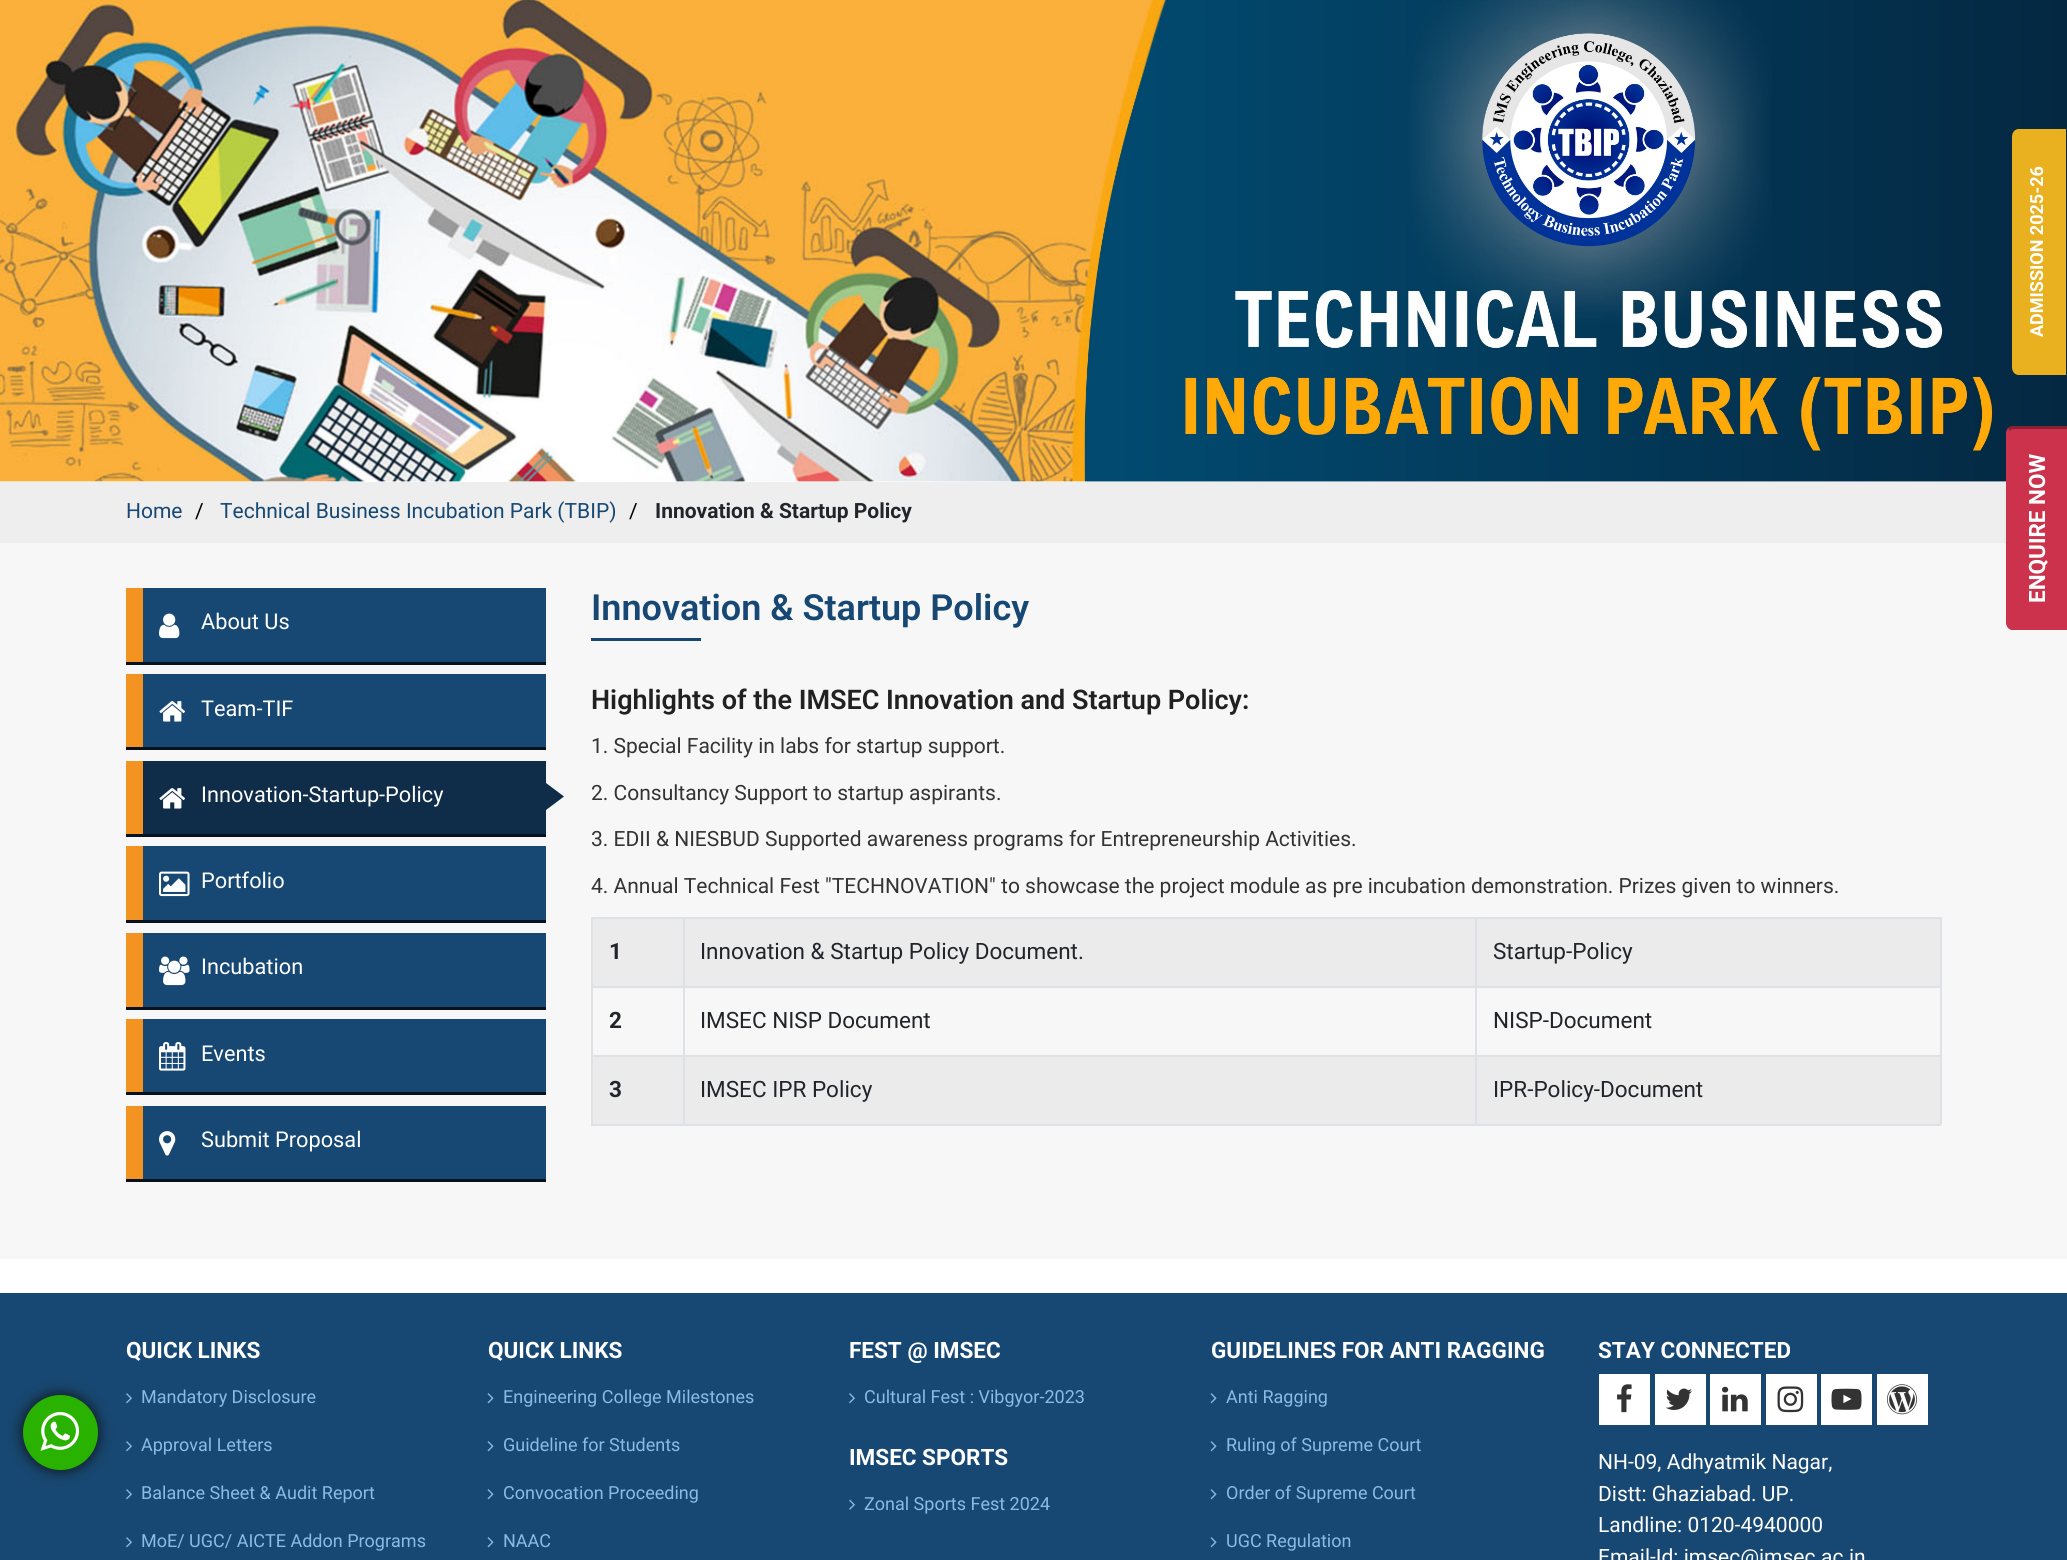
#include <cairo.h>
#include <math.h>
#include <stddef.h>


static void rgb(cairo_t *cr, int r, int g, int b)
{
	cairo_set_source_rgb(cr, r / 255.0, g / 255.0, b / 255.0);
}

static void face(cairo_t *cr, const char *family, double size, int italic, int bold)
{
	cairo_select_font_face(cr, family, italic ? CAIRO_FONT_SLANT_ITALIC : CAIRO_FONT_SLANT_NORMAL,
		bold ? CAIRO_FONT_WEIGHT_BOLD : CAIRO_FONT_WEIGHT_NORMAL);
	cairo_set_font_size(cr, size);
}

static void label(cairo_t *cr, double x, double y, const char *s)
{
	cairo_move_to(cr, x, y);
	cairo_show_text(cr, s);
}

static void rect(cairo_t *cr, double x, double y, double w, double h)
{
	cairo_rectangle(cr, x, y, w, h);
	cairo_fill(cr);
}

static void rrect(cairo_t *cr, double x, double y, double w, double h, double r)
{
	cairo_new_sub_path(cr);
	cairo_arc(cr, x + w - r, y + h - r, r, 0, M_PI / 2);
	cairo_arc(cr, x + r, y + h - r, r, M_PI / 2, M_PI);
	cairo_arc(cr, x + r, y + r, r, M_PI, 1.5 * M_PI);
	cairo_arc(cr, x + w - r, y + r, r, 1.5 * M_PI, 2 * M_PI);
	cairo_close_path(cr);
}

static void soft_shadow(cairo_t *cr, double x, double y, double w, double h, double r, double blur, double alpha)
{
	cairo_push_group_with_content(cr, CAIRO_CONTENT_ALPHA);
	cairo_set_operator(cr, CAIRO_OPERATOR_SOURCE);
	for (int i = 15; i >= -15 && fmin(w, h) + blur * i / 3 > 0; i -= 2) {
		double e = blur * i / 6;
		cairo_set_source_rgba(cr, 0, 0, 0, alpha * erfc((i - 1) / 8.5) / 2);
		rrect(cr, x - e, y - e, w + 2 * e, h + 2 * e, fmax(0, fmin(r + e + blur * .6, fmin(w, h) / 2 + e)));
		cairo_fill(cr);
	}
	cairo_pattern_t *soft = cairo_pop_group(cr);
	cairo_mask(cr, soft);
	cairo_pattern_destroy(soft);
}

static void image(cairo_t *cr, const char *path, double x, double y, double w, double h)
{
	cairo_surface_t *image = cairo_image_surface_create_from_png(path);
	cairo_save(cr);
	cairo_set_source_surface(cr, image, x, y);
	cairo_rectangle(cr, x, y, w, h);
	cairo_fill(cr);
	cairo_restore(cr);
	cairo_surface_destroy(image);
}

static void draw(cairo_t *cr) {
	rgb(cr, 255, 255, 255);
	cairo_paint(cr);
	image(cr, "image0.png", 0, 0, 2067, 482);
	rgb(cr, 233, 177, 32);
	cairo_new_path(cr);
	cairo_move_to(cr, 2012, 367);
	cairo_line_to(cr, 2012, 137);
	cairo_curve_to(cr, 2012, 132, 2015, 129, 2019, 129);
	cairo_line_to(cr, 2066, 129);
	cairo_line_to(cr, 2066, 375);
	cairo_line_to(cr, 2019, 375);
	cairo_curve_to(cr, 2015, 375, 2012, 372, 2012, 367);
	cairo_close_path(cr);
	cairo_fill(cr);
	face(cr, "Roboto", 18, 0, 1);
	rgb(cr, 255, 255, 255);
	cairo_save(cr);
	cairo_translate(cr, 2043, 337);
	cairo_rotate(cr, -90 * M_PI / 180);
	label(cr, 0, 0, "ADMISSION 2025-26");
	cairo_restore(cr);
	rgb(cr, 238, 238, 238);
	rect(cr, 0, 482, 2006, 61);
	face(cr, "Roboto", 21, 0, 0);
	rgb(cr, 23, 72, 115);
	label(cr, 126, 518, "Home");
	rgb(cr, 0, 0, 0);
	label(cr, 195, 518, "/");
	rgb(cr, 23, 72, 115);
	label(cr, 220, 518, "Technical Business Incubation Park (TBIP)");
	rgb(cr, 0, 0, 0);
	label(cr, 629, 518, "/");
	face(cr, "Roboto", 21, 0, 1);
	rgb(cr, 33, 37, 41);
	label(cr, 655, 518, "Innovation & Startup Policy");
	rgb(cr, 247, 247, 247);
	rect(cr, 0, 543, 2067, 716);
	rgb(cr, 204, 50, 75);
	cairo_new_path(cr);
	cairo_move_to(cr, 2006, 622);
	cairo_line_to(cr, 2006, 434);
	cairo_curve_to(cr, 2006, 430, 2009, 426, 2013, 426);
	cairo_line_to(cr, 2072, 426);
	cairo_line_to(cr, 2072, 630);
	cairo_line_to(cr, 2013, 630);
	cairo_curve_to(cr, 2009, 630, 2006, 626, 2006, 622);
	cairo_close_path(cr);
	cairo_fill(cr);
	cairo_new_path(cr);
	cairo_move_to(cr, 2006, 622);
	cairo_curve_to(cr, 2006, 624, 2007, 626, 2008, 628);
	cairo_line_to(cr, 2010, 625);
	cairo_curve_to(cr, 2009, 625, 2009, 623, 2009, 622);
	cairo_line_to(cr, 2009, 434);
	cairo_curve_to(cr, 2009, 433, 2009, 431, 2010, 431);
	cairo_line_to(cr, 2008, 428);
	cairo_curve_to(cr, 2007, 430, 2006, 432, 2006, 434);
	cairo_close_path(cr);
	cairo_fill(cr);
	rgb(cr, 136, 33, 50);
	cairo_new_path(cr);
	cairo_move_to(cr, 2008, 428);
	cairo_line_to(cr, 2011, 426);
	cairo_line_to(cr, 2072, 426);
	cairo_line_to(cr, 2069, 429);
	cairo_line_to(cr, 2012, 429);
	cairo_line_to(cr, 2010, 431);
	cairo_close_path(cr);
	cairo_fill(cr);
	rgb(cr, 204, 50, 75);
	cairo_new_path(cr);
	cairo_move_to(cr, 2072, 630);
	cairo_line_to(cr, 2011, 630);
	cairo_line_to(cr, 2008, 628);
	cairo_line_to(cr, 2010, 625);
	cairo_line_to(cr, 2012, 627);
	cairo_line_to(cr, 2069, 627);
	cairo_close_path(cr);
	cairo_fill(cr);
	face(cr, "Roboto", 22.5, 0, 1);
	rgb(cr, 255, 255, 255);
	cairo_save(cr);
	cairo_translate(cr, 2045, 603);
	cairo_rotate(cr, -90 * M_PI / 180);
	label(cr, 0, 0, "ENQUIRE NOW");
	cairo_restore(cr);
	rgb(cr, 23, 72, 115);
	rect(cr, 143, 588, 403, 74);
	rgb(cr, 6, 19, 30);
	rect(cr, 126, 662, 420, 3);
	rgb(cr, 243, 148, 34);
	rect(cr, 126, 588, 17, 74);
	image(cr, "image1.png", 159, 613, 21, 26);
	face(cr, "Roboto", 21.75, 0, 0);
	rgb(cr, 255, 255, 255);
	label(cr, 201, 629, "About Us");
	rgb(cr, 23, 72, 115);
	rect(cr, 143, 674, 403, 73);
	rgb(cr, 6, 19, 30);
	rect(cr, 126, 747, 420, 3);
	rgb(cr, 243, 148, 34);
	rect(cr, 126, 674, 17, 73);
	image(cr, "image2.png", 159, 701, 26, 21);
	rgb(cr, 255, 255, 255);
	label(cr, 201, 716, "Team-TIF");
	rgb(cr, 15, 45, 73);
	rect(cr, 143, 761, 403, 73);
	rgb(cr, 6, 19, 30);
	rect(cr, 126, 834, 420, 3);
	rgb(cr, 243, 148, 34);
	rect(cr, 126, 761, 17, 73);
	image(cr, "image3.png", 159, 788, 26, 21);
	rgb(cr, 255, 255, 255);
	label(cr, 201, 802, "Innovation-Startup-Policy");
	rgb(cr, 15, 45, 73);
	cairo_new_path(cr);
	cairo_move_to(cr, 546, 810);
	cairo_line_to(cr, 546, 783);
	cairo_line_to(cr, 564, 796.5);
	cairo_close_path(cr);
	cairo_fill(cr);
	rgb(cr, 23, 72, 115);
	rect(cr, 143, 846, 403, 74);
	rgb(cr, 6, 19, 30);
	rect(cr, 126, 920, 420, 3);
	rgb(cr, 243, 148, 34);
	rect(cr, 126, 846, 17, 74);
	image(cr, "image4.png", 159, 871, 31, 26);
	rgb(cr, 255, 255, 255);
	label(cr, 201, 888, "Portfolio");
	rgb(cr, 23, 72, 115);
	rect(cr, 143, 933, 403, 74);
	rgb(cr, 6, 19, 30);
	rect(cr, 126, 1007, 420, 3);
	rgb(cr, 243, 148, 34);
	rect(cr, 126, 933, 17, 74);
	image(cr, "image5.png", 159, 956, 31, 30);
	rgb(cr, 255, 255, 255);
	label(cr, 201, 974, "Incubation");
	rgb(cr, 23, 72, 115);
	rect(cr, 143, 1019, 403, 73);
	rgb(cr, 6, 19, 30);
	rect(cr, 126, 1092, 420, 3);
	rgb(cr, 243, 148, 34);
	rect(cr, 126, 1019, 17, 73);
	image(cr, "image6.png", 159, 1042, 27, 29);
	rgb(cr, 255, 255, 255);
	label(cr, 201, 1061, "Events");
	rgb(cr, 23, 72, 115);
	rect(cr, 143, 1106, 403, 73);
	rgb(cr, 6, 19, 30);
	rect(cr, 126, 1179, 420, 3);
	rgb(cr, 243, 148, 34);
	rect(cr, 126, 1106, 17, 73);
	image(cr, "image7.png", 159, 1131, 17, 25);
	rgb(cr, 255, 255, 255);
	label(cr, 201, 1147, "Submit Proposal");
	face(cr, "Roboto SemiBold", 36, 0, 0);
	rgb(cr, 23, 72, 115);
	label(cr, 591, 620, "Innovation & Startup Policy");
	rect(cr, 591, 638, 110, 3);
	face(cr, "Roboto SemiBold", 27, 0, 0);
	rgb(cr, 33, 33, 33);
	label(cr, 591, 709, "Highlights of the IMSEC Innovation and Startup Policy:");
	face(cr, "Roboto", 21, 0, 0);
	rgb(cr, 51, 51, 51);
	label(cr, 591, 753, "1. Special Facility in labs for startup support.");
	label(cr, 591, 800, "2. Consultancy Support to startup aspirants.");
	label(cr, 591, 846, "3. EDII & NIESBUD Supported awareness programs for Entrepreneurship Activities.");
	label(cr, 591, 893, "4. Annual Technical Fest \"TECHNOVATION\" to showcase the project module as pre incubation demonstration. Prizes given to winners.");
	rgb(cr, 222, 226, 230);
	rect(cr, 591, 917, 1350, 2);
	rect(cr, 1940, 917, 2, 208);
	rect(cr, 591, 1124, 1350, 2);
	rect(cr, 591, 917, 2, 208);
	rgb(cr, 235, 235, 235);
	rect(cr, 593, 919, 1347, 67);
	face(cr, "Roboto", 22.5, 0, 1);
	rgb(cr, 33, 37, 41);
	label(cr, 609, 959, "1");
	rgb(cr, 222, 226, 230);
	rect(cr, 1475, 986, 466, 2);
	rect(cr, 1475, 1055, 466, 2);
	rgb(cr, 235, 235, 235);
	rect(cr, 593, 1057, 1347, 67);
	rgb(cr, 222, 226, 230);
	rect(cr, 1475, 1055, 2, 70);
	rect(cr, 683, 1055, 793, 2);
	rect(cr, 1475, 986, 2, 70);
	rect(cr, 683, 986, 793, 2);
	rect(cr, 683, 1055, 2, 70);
	rect(cr, 591, 1055, 93, 2);
	rect(cr, 683, 986, 2, 70);
	rect(cr, 591, 986, 93, 2);
	rect(cr, 683, 917, 2, 70);
	face(cr, "Roboto", 22.5, 0, 0);
	rgb(cr, 33, 37, 41);
	label(cr, 700, 959, "Innovation & Startup Policy Document.");
	rgb(cr, 222, 226, 230);
	rect(cr, 1475, 917, 2, 70);
	rgb(cr, 33, 37, 41);
	label(cr, 1493, 959, "Startup-Policy");
	face(cr, "Roboto", 22.5, 0, 1);
	label(cr, 609, 1028, "2");
	face(cr, "Roboto", 22.5, 0, 0);
	label(cr, 700, 1028, "IMSEC NISP Document");
	label(cr, 1493, 1028, "NISP-Document");
	face(cr, "Roboto", 22.5, 0, 1);
	label(cr, 609, 1097, "3");
	face(cr, "Roboto", 22.5, 0, 0);
	label(cr, 700, 1097, "IMSEC IPR Policy");
	label(cr, 1493, 1097, "IPR-Policy-Document");
	rgb(cr, 23, 72, 115);
	rect(cr, 0, 1293, 2067, 267);
	rgb(cr, 17, 17, 17);
	soft_shadow(cr, 23, 1395, 75, 75, 37.5, 7.5, 1);
	rgb(cr, 42, 178, 0);
	cairo_arc(cr, 60.5, 1432.5, 37.5, 0, 2 * M_PI);
	cairo_fill(cr);
	image(cr, "image8.png", 40, 1412, 40, 39);
	face(cr, "Roboto", 22.5, 0, 1);
	rgb(cr, 255, 255, 255);
	label(cr, 126, 1358, "QUICK LINKS");
	image(cr, "image9.png", 126, 1393, 6, 11);
	face(cr, "Roboto", 18, 0, 0);
	rgb(cr, 136, 187, 231);
	label(cr, 141, 1403, "Mandatory Disclosure");
	image(cr, "image9.png", 126, 1441, 6, 11);
	label(cr, 141, 1451, "Approval Letters");
	image(cr, "image9.png", 126, 1489, 6, 11);
	label(cr, 141, 1499, "Balance Sheet & Audit Report");
	image(cr, "image9.png", 126, 1537, 6, 11);
	label(cr, 141, 1547, "MoE/ UGC/ AICTE Addon Programs");
	face(cr, "Roboto", 22.5, 0, 1);
	rgb(cr, 255, 255, 255);
	label(cr, 488, 1358, "QUICK LINKS");
	image(cr, "image10.png", 487, 1393, 7, 11);
	face(cr, "Roboto", 18, 0, 0);
	rgb(cr, 136, 187, 231);
	label(cr, 503, 1403, "Engineering College Milestones");
	image(cr, "image10.png", 487, 1441, 7, 11);
	label(cr, 503, 1451, "Guideline for Students");
	image(cr, "image10.png", 487, 1489, 7, 11);
	label(cr, 503, 1499, "Convocation Proceeding");
	image(cr, "image10.png", 487, 1537, 7, 11);
	label(cr, 503, 1547, "NAAC");
	face(cr, "Roboto", 22.5, 0, 1);
	rgb(cr, 255, 255, 255);
	label(cr, 849, 1358, "FEST @ IMSEC");
	image(cr, "image9.png", 849, 1393, 6, 11);
	face(cr, "Roboto", 18, 0, 0);
	rgb(cr, 136, 187, 231);
	label(cr, 864, 1403, "Cultural Fest : Vibgyor-2023");
	face(cr, "Roboto", 22.5, 0, 1);
	rgb(cr, 255, 255, 255);
	label(cr, 849, 1465, "IMSEC SPORTS");
	image(cr, "image11.png", 849, 1499, 6, 11);
	face(cr, "Roboto", 18, 0, 0);
	rgb(cr, 136, 187, 231);
	label(cr, 864, 1510, "Zonal Sports Fest 2024");
	face(cr, "Roboto", 22.5, 0, 1);
	rgb(cr, 255, 255, 255);
	label(cr, 1211, 1358, "GUIDELINES FOR ANTI RAGGING");
	image(cr, "image10.png", 1210, 1393, 7, 11);
	face(cr, "Roboto", 18, 0, 0);
	rgb(cr, 136, 187, 231);
	label(cr, 1226, 1403, "Anti Ragging");
	image(cr, "image10.png", 1210, 1441, 7, 11);
	label(cr, 1226, 1451, "Ruling of Supreme Court");
	image(cr, "image10.png", 1210, 1489, 7, 11);
	label(cr, 1226, 1499, "Order of Supreme Court");
	image(cr, "image10.png", 1210, 1537, 7, 11);
	label(cr, 1226, 1547, "UGC Regulation");
	face(cr, "Roboto", 22.5, 0, 1);
	rgb(cr, 255, 255, 255);
	label(cr, 1598, 1358, "STAY CONNECTED");
	rect(cr, 1599, 1374, 51, 51);
	image(cr, "image12.png", 1617, 1384, 15, 29);
	rect(cr, 1655, 1374, 51, 51);
	image(cr, "image13.png", 1666, 1388, 26, 22);
	rect(cr, 1710, 1374, 51, 51);
	image(cr, "image14.png", 1722, 1386, 26, 26);
	rect(cr, 1766, 1374, 51, 51);
	image(cr, "image15.png", 1777, 1386, 27, 27);
	rect(cr, 1821, 1374, 51, 51);
	image(cr, "image16.png", 1831, 1388, 31, 22);
	rect(cr, 1877, 1374, 51, 51);
	image(cr, "image17.png", 1887, 1384, 30, 31);
	face(cr, "Roboto", 21, 0, 0);
	label(cr, 1598, 1469, "NH-09, Adhyatmik Nagar,");
	label(cr, 1598, 1501, "Distt: Ghaziabad. UP.");
	label(cr, 1598, 1532, "Landline: 0120-4940000");
	label(cr, 1598, 1564, "Email-Id: imsec@imsec.ac.in");
}

int main(void) {
	cairo_surface_t *surface = cairo_image_surface_create(CAIRO_FORMAT_RGB24, 2067, 1560);
	cairo_t *cr = cairo_create(surface);
	cairo_font_options_t *options = cairo_font_options_create();
	cairo_font_options_set_hint_metrics(options, CAIRO_HINT_METRICS_OFF);
	cairo_font_options_set_hint_style(options, CAIRO_HINT_STYLE_NONE);
	cairo_set_font_options(cr, options);
	cairo_set_miter_limit(cr, 4);
	draw(cr);
	cairo_surface_write_to_png(surface, "render.png");
	cairo_font_options_destroy(options);
	cairo_destroy(cr);
	cairo_surface_destroy(surface);
	return 0;
}
